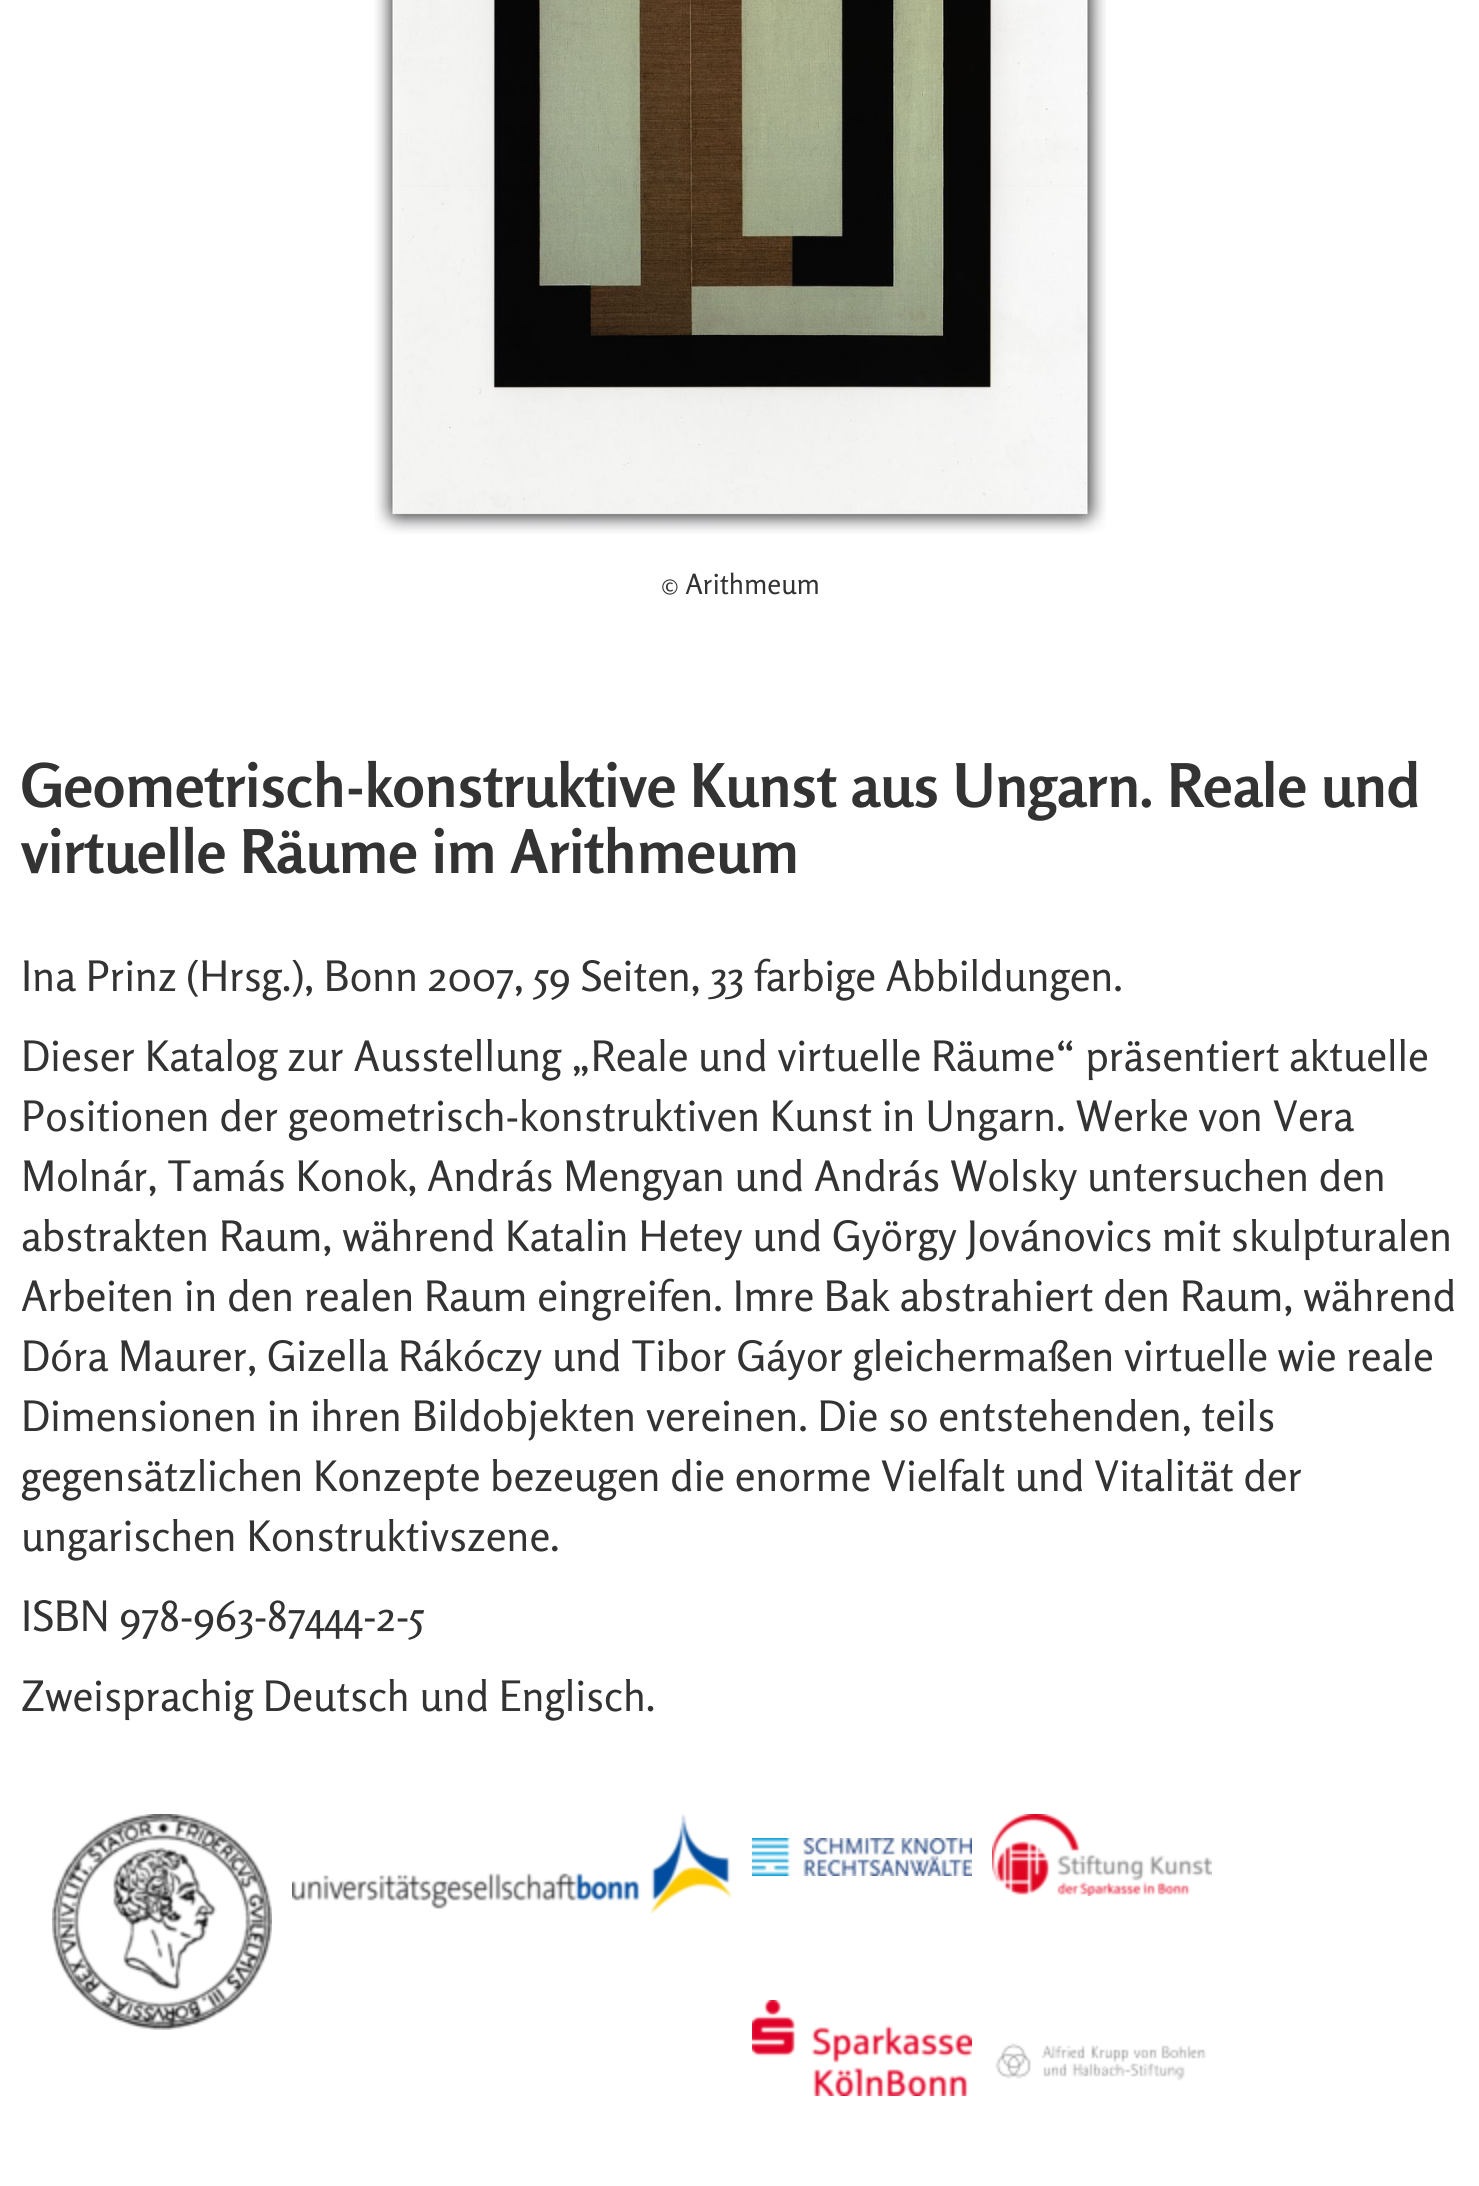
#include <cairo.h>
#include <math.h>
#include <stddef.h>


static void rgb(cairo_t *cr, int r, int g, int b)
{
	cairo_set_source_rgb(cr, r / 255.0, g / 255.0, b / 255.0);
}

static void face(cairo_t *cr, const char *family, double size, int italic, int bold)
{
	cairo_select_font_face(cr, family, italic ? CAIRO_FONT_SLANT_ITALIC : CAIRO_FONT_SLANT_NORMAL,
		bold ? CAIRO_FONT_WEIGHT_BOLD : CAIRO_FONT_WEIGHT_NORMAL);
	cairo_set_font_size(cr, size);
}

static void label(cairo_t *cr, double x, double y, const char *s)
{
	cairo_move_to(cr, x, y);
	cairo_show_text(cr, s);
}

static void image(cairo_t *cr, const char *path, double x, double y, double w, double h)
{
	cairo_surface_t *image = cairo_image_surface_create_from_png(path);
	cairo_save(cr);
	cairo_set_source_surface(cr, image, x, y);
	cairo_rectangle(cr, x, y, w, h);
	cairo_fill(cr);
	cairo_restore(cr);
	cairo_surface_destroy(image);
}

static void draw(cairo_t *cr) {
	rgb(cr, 255, 255, 255);
	cairo_paint(cr);
	image(cr, "image0.png", 374, 0, 732, 534);
	face(cr, "Rosario", 28, 0, 0);
	rgb(cr, 51, 51, 51);
	label(cr, 661, 594, "© Arithmeum");
	face(cr, "Rosario", 60, 0, 1);
	label(cr, 21, 807, "Geometrisch-konstruktive Kunst aus Ungarn. Reale und");
	label(cr, 21, 873, "virtuelle Räume im Arithmeum");
	face(cr, "Rosario", 42, 0, 0);
	label(cr, 21, 991, "Ina Prinz (Hrsg.), Bonn 2007, 59 Seiten, 33 farbige Abbildungen.");
	label(cr, 21, 1071, "Dieser Katalog zur Ausstellung „Reale und virtuelle Räume“ präsentiert aktuelle");
	label(cr, 21, 1131, "Positionen der geometrisch-konstruktiven Kunst in Ungarn. Werke von Vera");
	label(cr, 21, 1191, "Molnár, Tamás Konok, András Mengyan und András Wolsky untersuchen den");
	label(cr, 21, 1251, "abstrakten Raum, während Katalin Hetey und György Jovánovics mit skulpturalen");
	label(cr, 21, 1311, "Arbeiten in den realen Raum eingreifen. Imre Bak abstrahiert den Raum, während");
	label(cr, 21, 1371, "Dóra Maurer, Gizella Rákóczy und Tibor Gáyor gleichermaßen virtuelle wie reale");
	label(cr, 21, 1431, "Dimensionen in ihren Bildobjekten vereinen. Die so entstehenden, teils");
	label(cr, 21, 1491, "gegensätzlichen Konzepte bezeugen die enorme Vielfalt und Vitalität der");
	label(cr, 21, 1551, "ungarischen Konstruktivszene.");
	label(cr, 21, 1631, "ISBN 978-963-87444-2-5");
	label(cr, 21, 1711, "Zweisprachig Deutsch und Englisch.");
	image(cr, "image1.png", 52, 1814, 220, 216);
	image(cr, "image2.png", 292, 1814, 440, 100);
	image(cr, "image3.png", 752, 1838, 220, 38);
	image(cr, "image4.png", 992, 1814, 220, 82);
	image(cr, "image5.png", 752, 2000, 220, 96);
	image(cr, "image6.png", 995, 2043, 211, 38);
}

int main(void) {
	cairo_surface_t *surface = cairo_image_surface_create(CAIRO_FORMAT_RGB24, 1479, 2186);
	cairo_t *cr = cairo_create(surface);
	cairo_font_options_t *options = cairo_font_options_create();
	cairo_font_options_set_hint_metrics(options, CAIRO_HINT_METRICS_OFF);
	cairo_font_options_set_hint_style(options, CAIRO_HINT_STYLE_NONE);
	cairo_set_font_options(cr, options);
	cairo_set_miter_limit(cr, 4);
	draw(cr);
	cairo_surface_write_to_png(surface, "render.png");
	cairo_font_options_destroy(options);
	cairo_destroy(cr);
	cairo_surface_destroy(surface);
	return 0;
}
